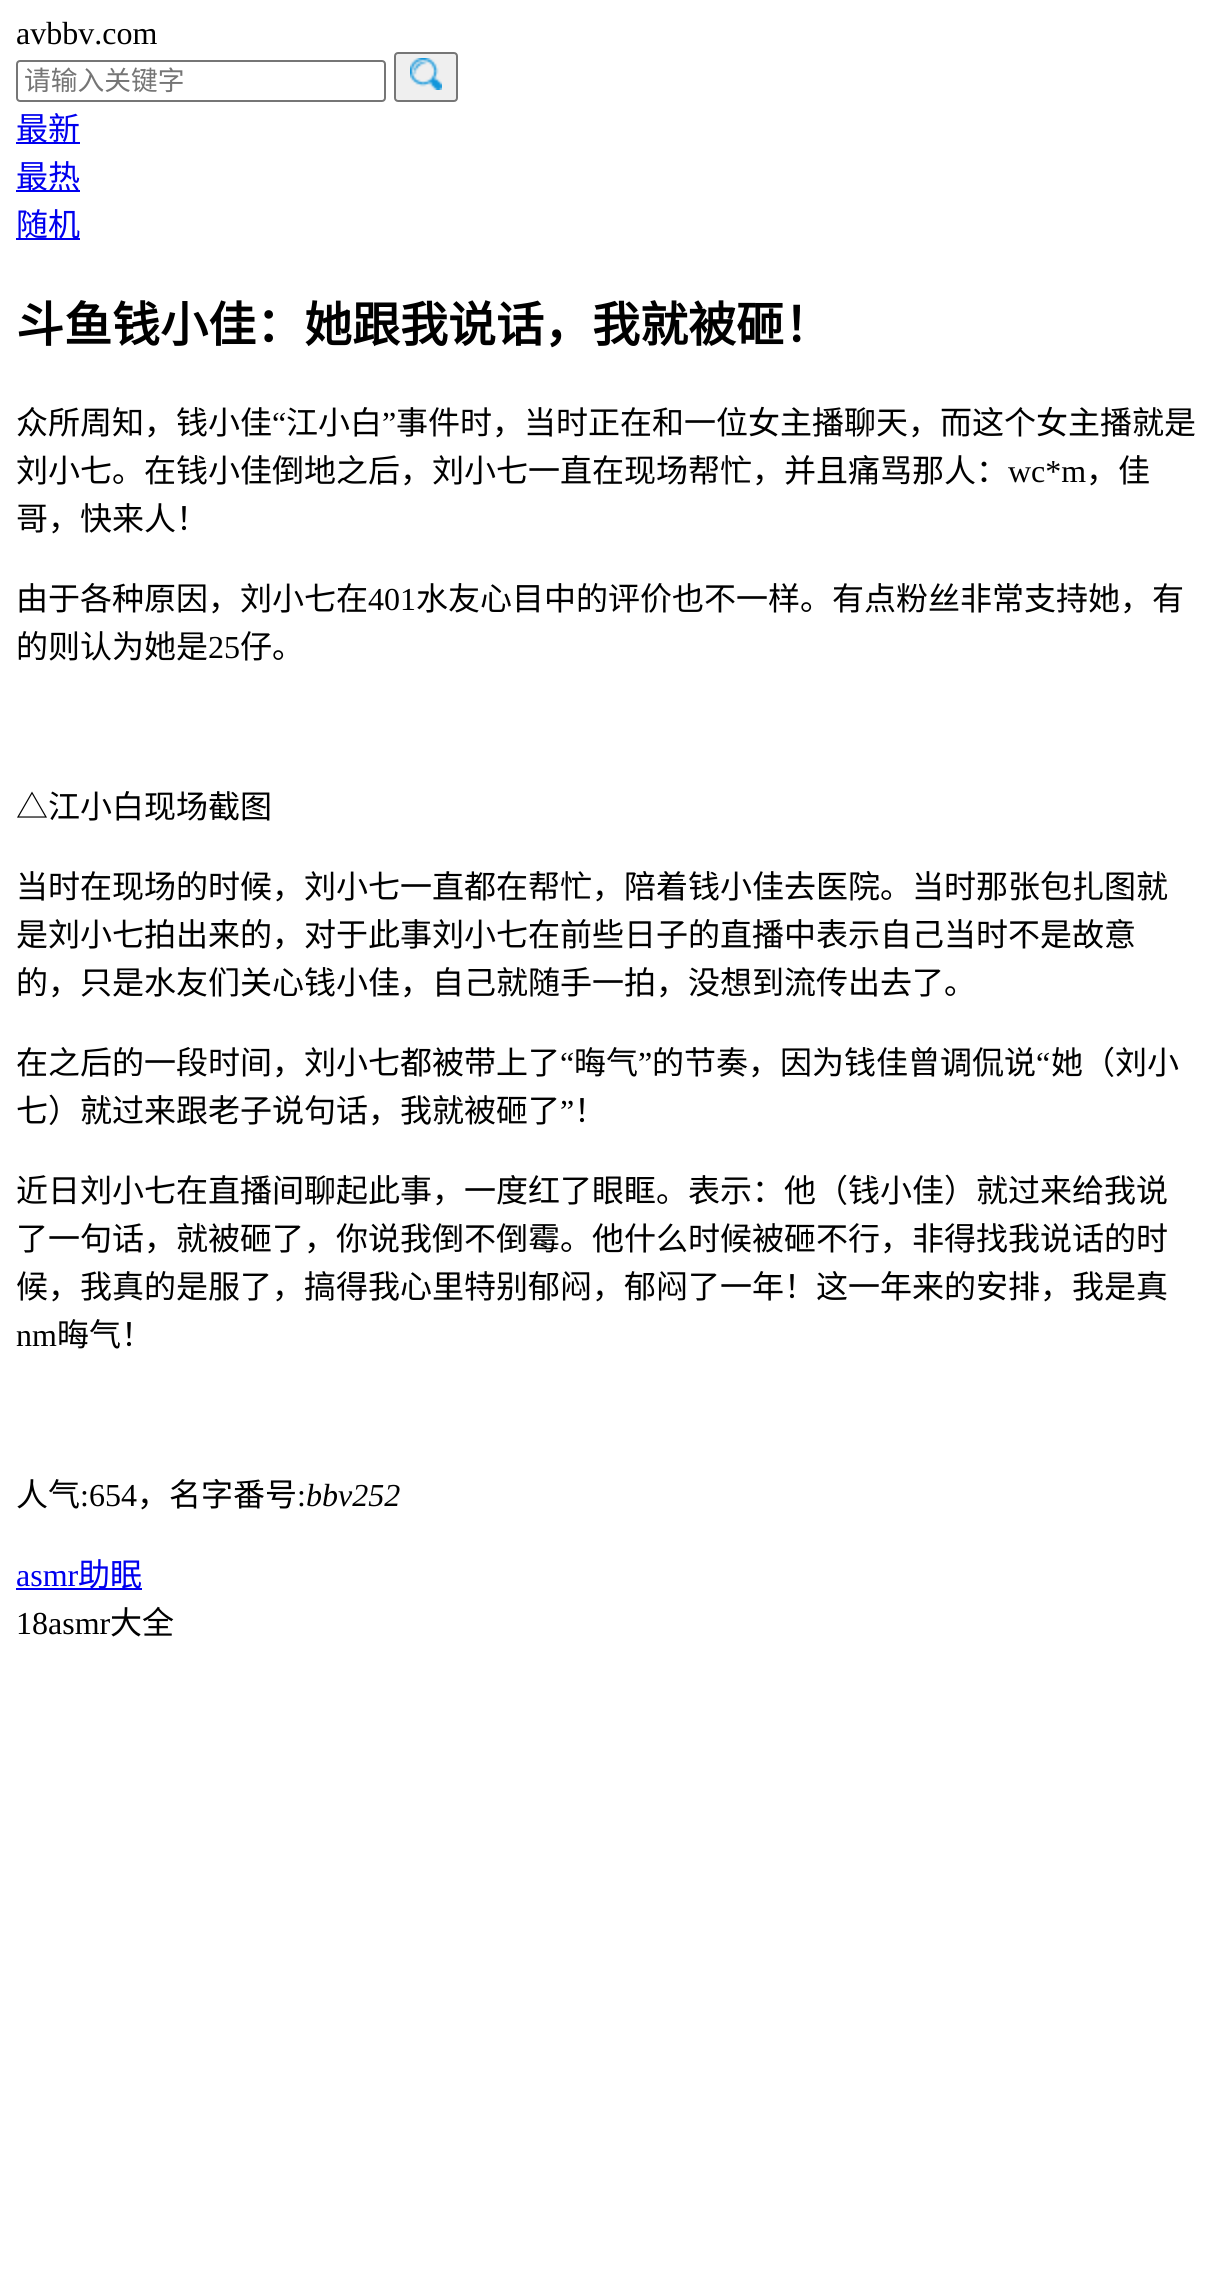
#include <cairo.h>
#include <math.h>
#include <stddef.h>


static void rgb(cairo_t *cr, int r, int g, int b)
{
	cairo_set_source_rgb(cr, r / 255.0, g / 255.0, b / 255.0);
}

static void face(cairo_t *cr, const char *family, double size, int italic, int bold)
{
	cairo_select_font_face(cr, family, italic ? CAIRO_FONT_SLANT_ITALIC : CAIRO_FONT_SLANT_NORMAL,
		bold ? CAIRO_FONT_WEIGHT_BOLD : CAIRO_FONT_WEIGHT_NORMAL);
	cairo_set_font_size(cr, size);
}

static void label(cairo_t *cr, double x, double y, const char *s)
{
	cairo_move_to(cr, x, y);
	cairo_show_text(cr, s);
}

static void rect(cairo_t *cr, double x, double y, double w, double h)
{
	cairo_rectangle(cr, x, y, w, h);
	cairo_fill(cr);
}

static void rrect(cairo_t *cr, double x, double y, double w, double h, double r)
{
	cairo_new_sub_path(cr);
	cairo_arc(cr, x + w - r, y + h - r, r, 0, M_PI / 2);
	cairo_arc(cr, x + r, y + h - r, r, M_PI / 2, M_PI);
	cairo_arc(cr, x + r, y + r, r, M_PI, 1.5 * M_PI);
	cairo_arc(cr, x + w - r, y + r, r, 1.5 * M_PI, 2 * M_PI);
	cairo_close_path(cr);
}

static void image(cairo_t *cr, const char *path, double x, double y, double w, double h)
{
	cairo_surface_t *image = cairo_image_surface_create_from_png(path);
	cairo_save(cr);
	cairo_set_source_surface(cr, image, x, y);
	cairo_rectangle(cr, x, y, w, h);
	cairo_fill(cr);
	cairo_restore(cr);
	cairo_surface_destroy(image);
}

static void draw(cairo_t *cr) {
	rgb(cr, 255, 255, 255);
	cairo_paint(cr);
	face(cr, "Liberation Serif", 32, 0, 0);
	rgb(cr, 0, 0, 0);
	label(cr, 16, 44, "avbbv.com");
	rrect(cr, 17, 61, 368, 40, 3);
	rgb(cr, 118, 118, 118);
	cairo_stroke(cr);
	face(cr, "Noto Sans CJK SC", 26.75, 0, 0);
	rgb(cr, 117, 117, 117);
	label(cr, 24, 90, "请输入关键字");
	rgb(cr, 239, 239, 239);
	rrect(cr, 395, 53, 62, 48, 3);
	cairo_fill_preserve(cr);
	rgb(cr, 118, 118, 118);
	cairo_stroke(cr);
	image(cr, "image0.png", 410, 58, 32, 32);
	rgb(cr, 0, 0, 238);
	rect(cr, 16, 142, 64, 2);
	face(cr, "Noto Sans CJK SC", 32, 0, 0);
	label(cr, 16, 140, "最新");
	rect(cr, 16, 190, 64, 2);
	label(cr, 16, 188, "最热");
	rect(cr, 16, 238, 64, 2);
	label(cr, 16, 236, "随机");
	face(cr, "Noto Sans CJK SC", 48, 0, 1);
	rgb(cr, 0, 0, 0);
	label(cr, 16, 342, "斗鱼钱小佳：她跟我说话，我就被砸！");
	face(cr, "Noto Sans CJK SC", 32, 0, 0);
	label(cr, 16, 434, "众所周知，钱小佳");
	face(cr, "Liberation Serif", 32, 0, 0);
	label(cr, 272, 434, "“");
	face(cr, "Noto Sans CJK SC", 32, 0, 0);
	label(cr, 286, 434, "江小白");
	face(cr, "Liberation Serif", 32, 0, 0);
	label(cr, 382, 434, "”");
	face(cr, "Noto Sans CJK SC", 32, 0, 0);
	label(cr, 396, 434, "事件时，当时正在和一位女主播聊天，而这个女主播就是");
	label(cr, 16, 482, "刘小七。在钱小佳倒地之后，刘小七一直在现场帮忙，并且痛骂那人：");
	face(cr, "Liberation Serif", 32, 0, 0);
	label(cr, 1008, 482, "wc*m");
	face(cr, "Noto Sans CJK SC", 32, 0, 0);
	label(cr, 1086, 482, "，佳");
	label(cr, 16, 530, "哥，快来人！");
	label(cr, 16, 610, "由于各种原因，刘小七在");
	face(cr, "Liberation Serif", 32, 0, 0);
	label(cr, 368, 610, "401");
	face(cr, "Noto Sans CJK SC", 32, 0, 0);
	label(cr, 416, 610, "水友心目中的评价也不一样。有点粉丝非常支持她，有");
	label(cr, 16, 658, "的则认为她是");
	face(cr, "Liberation Serif", 32, 0, 0);
	label(cr, 208, 658, "25");
	face(cr, "Noto Sans CJK SC", 32, 0, 0);
	label(cr, 240, 658, "仔。");
	label(cr, 16, 818, "△江小白现场截图");
	label(cr, 16, 898, "当时在现场的时候，刘小七一直都在帮忙，陪着钱小佳去医院。当时那张包扎图就");
	label(cr, 16, 946, "是刘小七拍出来的，对于此事刘小七在前些日子的直播中表示自己当时不是故意");
	label(cr, 16, 994, "的，只是水友们关心钱小佳，自己就随手一拍，没想到流传出去了。");
	label(cr, 16, 1074, "在之后的一段时间，刘小七都被带上了");
	face(cr, "Liberation Serif", 32, 0, 0);
	label(cr, 560, 1074, "“");
	face(cr, "Noto Sans CJK SC", 32, 0, 0);
	label(cr, 574, 1074, "晦气");
	face(cr, "Liberation Serif", 32, 0, 0);
	label(cr, 638, 1074, "”");
	face(cr, "Noto Sans CJK SC", 32, 0, 0);
	label(cr, 652, 1074, "的节奏，因为钱佳曾调侃说");
	face(cr, "Liberation Serif", 32, 0, 0);
	label(cr, 1036, 1074, "“");
	face(cr, "Noto Sans CJK SC", 32, 0, 0);
	label(cr, 1051, 1074, "她（刘小");
	label(cr, 16, 1122, "七）就过来跟老子说句话，我就被砸了");
	face(cr, "Liberation Serif", 32, 0, 0);
	label(cr, 560, 1122, "”");
	face(cr, "Noto Sans CJK SC", 32, 0, 0);
	label(cr, 574, 1122, "！");
	label(cr, 16, 1202, "近日刘小七在直播间聊起此事，一度红了眼眶。表示：他（钱小佳）就过来给我说");
	label(cr, 16, 1250, "了一句话，就被砸了，你说我倒不倒霉。他什么时候被砸不行，非得找我说话的时");
	label(cr, 16, 1298, "候，我真的是服了，搞得我心里特别郁闷，郁闷了一年！这一年来的安排，我是真");
	face(cr, "Liberation Serif", 32, 0, 0);
	label(cr, 16, 1346, "nm");
	face(cr, "Noto Sans CJK SC", 32, 0, 0);
	label(cr, 57, 1346, "晦气！");
	label(cr, 16, 1506, "人气");
	face(cr, "Liberation Serif", 32, 0, 0);
	label(cr, 80, 1506, ":654");
	face(cr, "Noto Sans CJK SC", 32, 0, 0);
	label(cr, 137, 1506, "，名字番号");
	face(cr, "Liberation Serif", 32, 0, 0);
	label(cr, 297, 1506, ":");
	face(cr, "Liberation Serif", 32, 1, 0);
	label(cr, 306, 1506, "bbv252");
	face(cr, "Liberation Serif", 32, 0, 0);
	rgb(cr, 0, 0, 238);
	label(cr, 16, 1586, "asmr");
	rect(cr, 16, 1588, 126, 2);
	face(cr, "Noto Sans CJK SC", 32, 0, 0);
	label(cr, 78, 1586, "助眠");
	face(cr, "Liberation Serif", 32, 0, 0);
	rgb(cr, 0, 0, 0);
	label(cr, 16, 1634, "18asmr");
	face(cr, "Noto Sans CJK SC", 32, 0, 0);
	label(cr, 110, 1634, "大全");
}

int main(void) {
	cairo_surface_t *surface = cairo_image_surface_create(CAIRO_FORMAT_RGB24, 1214, 2274);
	cairo_t *cr = cairo_create(surface);
	cairo_font_options_t *options = cairo_font_options_create();
	cairo_font_options_set_hint_metrics(options, CAIRO_HINT_METRICS_OFF);
	cairo_font_options_set_hint_style(options, CAIRO_HINT_STYLE_NONE);
	cairo_set_font_options(cr, options);
	cairo_set_miter_limit(cr, 4);
	draw(cr);
	cairo_surface_write_to_png(surface, "render.png");
	cairo_font_options_destroy(options);
	cairo_destroy(cr);
	cairo_surface_destroy(surface);
	return 0;
}
